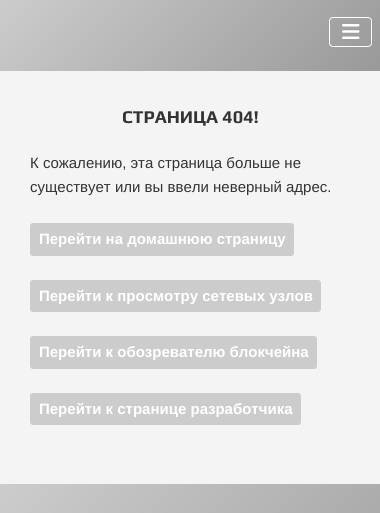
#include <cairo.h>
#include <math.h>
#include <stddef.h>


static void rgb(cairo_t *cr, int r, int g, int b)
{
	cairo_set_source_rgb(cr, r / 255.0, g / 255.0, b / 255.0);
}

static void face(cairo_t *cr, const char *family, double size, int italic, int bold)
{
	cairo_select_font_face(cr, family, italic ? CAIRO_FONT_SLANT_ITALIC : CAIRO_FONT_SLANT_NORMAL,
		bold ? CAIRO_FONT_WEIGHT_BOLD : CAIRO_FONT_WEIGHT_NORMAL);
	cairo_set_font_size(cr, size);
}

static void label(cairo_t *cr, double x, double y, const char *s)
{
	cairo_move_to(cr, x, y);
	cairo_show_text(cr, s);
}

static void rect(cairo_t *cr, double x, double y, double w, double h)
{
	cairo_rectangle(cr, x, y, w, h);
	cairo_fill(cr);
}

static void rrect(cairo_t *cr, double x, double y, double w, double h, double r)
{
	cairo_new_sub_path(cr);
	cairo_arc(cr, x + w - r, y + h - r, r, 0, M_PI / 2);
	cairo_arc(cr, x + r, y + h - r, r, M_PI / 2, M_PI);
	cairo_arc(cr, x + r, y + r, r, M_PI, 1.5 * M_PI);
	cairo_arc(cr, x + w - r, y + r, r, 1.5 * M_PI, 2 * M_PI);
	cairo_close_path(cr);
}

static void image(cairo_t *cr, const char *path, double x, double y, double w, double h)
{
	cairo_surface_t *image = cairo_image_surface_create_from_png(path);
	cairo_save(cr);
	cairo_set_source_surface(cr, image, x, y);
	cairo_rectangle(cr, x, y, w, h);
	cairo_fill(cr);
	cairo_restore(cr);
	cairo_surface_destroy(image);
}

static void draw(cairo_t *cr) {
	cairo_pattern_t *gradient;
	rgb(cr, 244, 244, 244);
	cairo_paint(cr);
	gradient = cairo_pattern_create_linear(77, -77, 303, 148);
	cairo_pattern_add_color_stop_rgba(gradient, 0, 0.8, 0.8, 0.8, 1);
	cairo_pattern_add_color_stop_rgba(gradient, 1, 0.6, 0.6, 0.6, 1);
	cairo_set_source(cr, gradient);
	cairo_pattern_destroy(gradient);
	rect(cr, 0, 0, 380, 71);
	rrect(cr, 329.5, 17.5, 42, 29, 3.5);
	rgb(cr, 255, 255, 255);
	cairo_set_line_width(cr, 1);
	cairo_stroke(cr);
	image(cr, "image0.png", 342, 24, 18, 15);
	face(cr, "Play", 18, 0, 1);
	rgb(cr, 51, 51, 51);
	label(cr, 122, 123, "СТРАНИЦА 404!");
	face(cr, "Liberation Sans", 15, 0, 0);
	label(cr, 30, 168, "К сожалению, эта страница больше не");
	label(cr, 30, 192, "существует или вы ввели неверный адрес.");
	rgb(cr, 204, 204, 204);
	rrect(cr, 30.5, 223.5, 263, 32, 2.5);
	cairo_fill_preserve(cr);
	cairo_stroke(cr);
	face(cr, "Liberation Sans", 15, 0, 1);
	rgb(cr, 255, 255, 255);
	label(cr, 39, 244, "Перейти на домашнюю страницу");
	rgb(cr, 204, 204, 204);
	rrect(cr, 30.5, 280.5, 290, 31, 2.5);
	cairo_fill_preserve(cr);
	cairo_stroke(cr);
	rgb(cr, 255, 255, 255);
	label(cr, 39, 301, "Перейти к просмотру сетевых узлов");
	rgb(cr, 204, 204, 204);
	rrect(cr, 30.5, 336.5, 286, 32, 2.5);
	cairo_fill_preserve(cr);
	cairo_stroke(cr);
	rgb(cr, 255, 255, 255);
	label(cr, 39, 357, "Перейти к обозревателю блокчейна");
	rgb(cr, 204, 204, 204);
	rrect(cr, 30.5, 393.5, 270, 31, 2.5);
	cairo_fill_preserve(cr);
	cairo_stroke(cr);
	rgb(cr, 255, 255, 255);
	label(cr, 39, 414, "Перейти к странице разработчика");
	gradient = cairo_pattern_create_linear(31, 453, 349, 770);
	cairo_pattern_add_color_stop_rgba(gradient, 0, 0.8, 0.8, 0.8, 1);
	cairo_pattern_add_color_stop_rgba(gradient, 1, 0.6, 0.6, 0.6, 1);
	cairo_set_source(cr, gradient);
	cairo_pattern_destroy(gradient);
	rect(cr, 0, 484, 380, 29);
}

int main(void) {
	cairo_surface_t *surface = cairo_image_surface_create(CAIRO_FORMAT_RGB24, 380, 513);
	cairo_t *cr = cairo_create(surface);
	cairo_font_options_t *options = cairo_font_options_create();
	cairo_font_options_set_hint_metrics(options, CAIRO_HINT_METRICS_OFF);
	cairo_font_options_set_hint_style(options, CAIRO_HINT_STYLE_NONE);
	cairo_set_font_options(cr, options);
	cairo_set_miter_limit(cr, 4);
	draw(cr);
	cairo_surface_write_to_png(surface, "render.png");
	cairo_font_options_destroy(options);
	cairo_destroy(cr);
	cairo_surface_destroy(surface);
	return 0;
}
